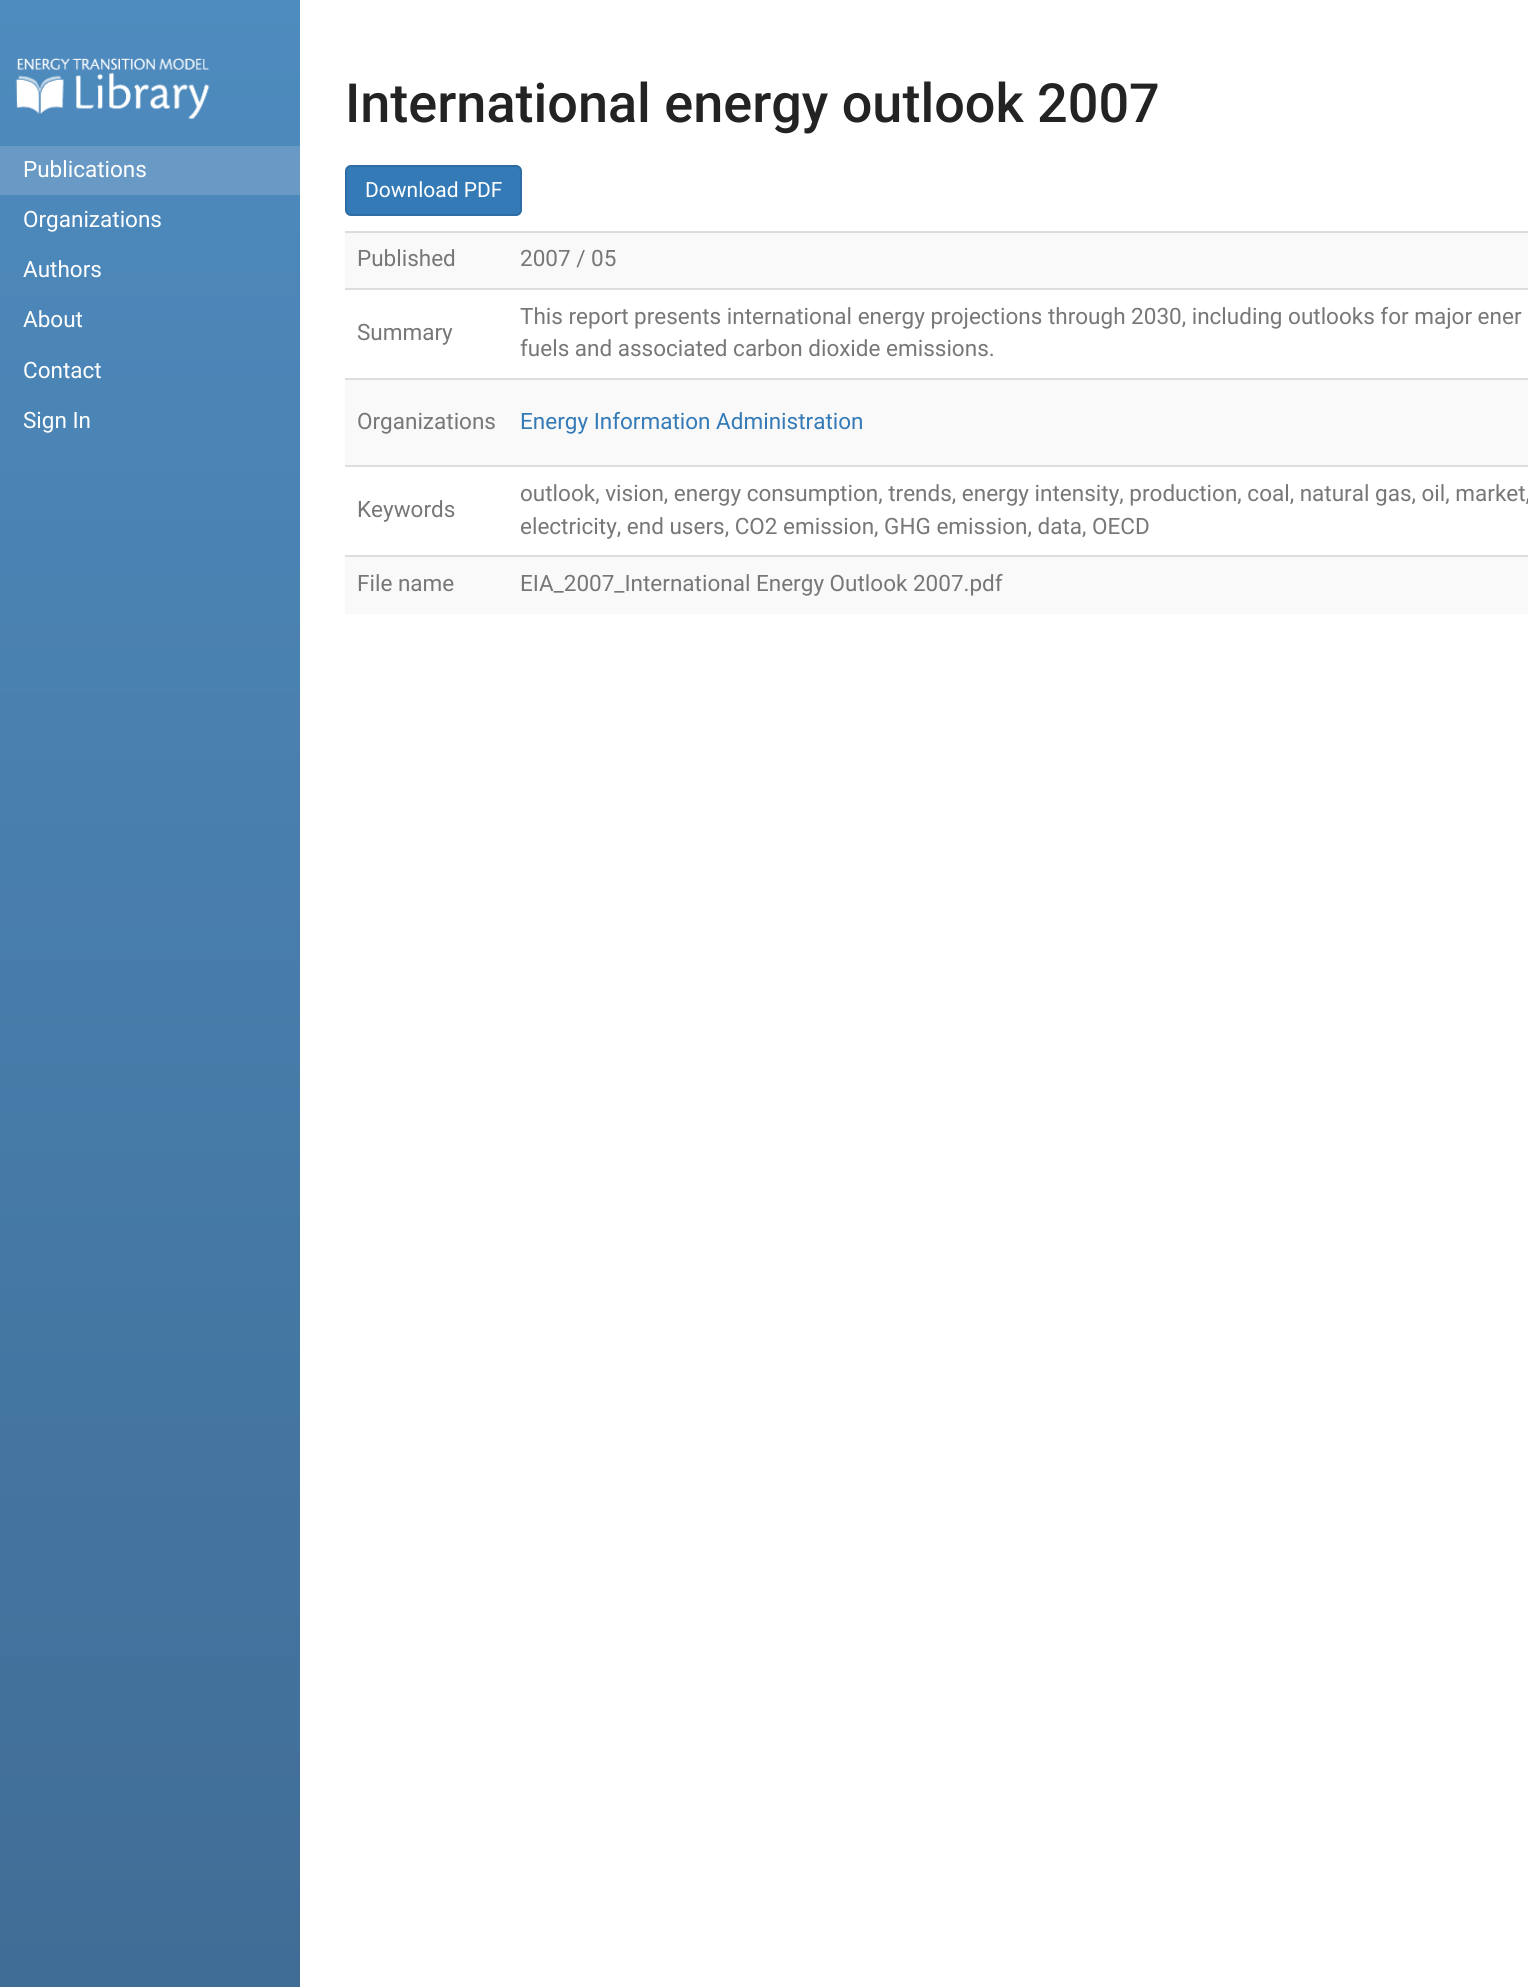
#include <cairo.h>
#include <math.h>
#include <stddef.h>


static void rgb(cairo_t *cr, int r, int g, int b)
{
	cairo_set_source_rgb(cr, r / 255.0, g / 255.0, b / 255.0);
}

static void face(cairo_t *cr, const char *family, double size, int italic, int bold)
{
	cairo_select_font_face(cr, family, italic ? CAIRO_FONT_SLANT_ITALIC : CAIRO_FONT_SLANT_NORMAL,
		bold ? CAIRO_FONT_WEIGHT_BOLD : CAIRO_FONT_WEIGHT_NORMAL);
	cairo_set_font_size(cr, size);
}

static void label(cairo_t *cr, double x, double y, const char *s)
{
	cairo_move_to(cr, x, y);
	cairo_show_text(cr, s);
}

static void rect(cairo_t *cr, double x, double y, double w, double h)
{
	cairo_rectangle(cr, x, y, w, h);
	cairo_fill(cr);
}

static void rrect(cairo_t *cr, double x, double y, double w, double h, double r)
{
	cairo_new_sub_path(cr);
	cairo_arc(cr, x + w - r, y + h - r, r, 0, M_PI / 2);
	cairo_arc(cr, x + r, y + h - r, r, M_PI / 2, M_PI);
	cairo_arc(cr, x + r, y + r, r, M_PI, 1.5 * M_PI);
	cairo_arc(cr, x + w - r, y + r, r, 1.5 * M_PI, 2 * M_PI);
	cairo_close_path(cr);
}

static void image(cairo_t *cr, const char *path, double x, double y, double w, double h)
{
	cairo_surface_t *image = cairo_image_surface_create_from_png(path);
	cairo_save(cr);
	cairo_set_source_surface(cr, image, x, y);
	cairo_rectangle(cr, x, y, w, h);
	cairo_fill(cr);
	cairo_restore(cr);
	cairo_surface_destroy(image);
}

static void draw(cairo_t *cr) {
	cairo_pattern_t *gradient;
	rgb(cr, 255, 255, 255);
	cairo_paint(cr);
	gradient = cairo_pattern_create_linear(150, 0, 150, 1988);
	cairo_pattern_add_color_stop_rgba(gradient, 0, 0.306, 0.545, 0.745, 1);
	cairo_pattern_add_color_stop_rgba(gradient, 1, 0.251, 0.427, 0.588, 1);
	cairo_set_source(cr, gradient);
	cairo_pattern_destroy(gradient);
	rect(cr, 0, 0, 300, 1987);
	image(cr, "image0.png", 15, 58, 195, 62);
	rgb(cr, 104, 154, 197);
	rect(cr, 0, 146, 300, 49);
	face(cr, "Roboto", 22.5, 0, 0);
	rgb(cr, 255, 255, 255);
	label(cr, 23, 177, "Publications");
	label(cr, 23, 227, "Organizations");
	label(cr, 23, 277, "Authors");
	label(cr, 23, 327, "About");
	label(cr, 23, 378, "Contact");
	label(cr, 23, 428, "Sign In");
	face(cr, "Roboto Medium", 54, 0, 0);
	rgb(cr, 35, 35, 35);
	label(cr, 345, 122, "International energy outlook 2007");
	rgb(cr, 51, 122, 183);
	rrect(cr, 346, 166, 175, 49, 5);
	cairo_fill_preserve(cr);
	rgb(cr, 46, 109, 164);
	cairo_stroke(cr);
	face(cr, "Roboto", 21, 0, 0);
	rgb(cr, 255, 255, 255);
	label(cr, 365, 197, "Download PDF");
	rgb(cr, 249, 249, 249);
	rect(cr, 345, 233, 1183, 55);
	face(cr, "Roboto", 22.5, 0, 0);
	rgb(cr, 119, 119, 119);
	label(cr, 357, 266, "Published");
	rgb(cr, 221, 221, 221);
	rect(cr, 345, 231, 1183, 2);
	rgb(cr, 119, 119, 119);
	label(cr, 520, 266, "2007 / 05");
	label(cr, 357, 340, "Summary");
	rgb(cr, 221, 221, 221);
	rect(cr, 345, 288, 1183, 2);
	rgb(cr, 119, 119, 119);
	label(cr, 520, 324, "This report presents international energy projections through 2030, including outlooks for major ener");
	label(cr, 520, 356, "fuels and associated carbon dioxide emissions.");
	rgb(cr, 249, 249, 249);
	rect(cr, 345, 380, 1183, 85);
	rgb(cr, 119, 119, 119);
	label(cr, 357, 429, "Organizations");
	rgb(cr, 221, 221, 221);
	rect(cr, 345, 378, 1183, 2);
	rgb(cr, 51, 122, 183);
	label(cr, 520, 429, "Energy Information Administration");
	rgb(cr, 119, 119, 119);
	label(cr, 357, 517, "Keywords");
	rgb(cr, 221, 221, 221);
	rect(cr, 345, 465, 1183, 2);
	rgb(cr, 119, 119, 119);
	label(cr, 520, 501, "outlook, vision, energy consumption, trends, energy intensity, production, coal, natural gas, oil, market,");
	label(cr, 520, 534, "electricity, end users, CO2 emission, GHG emission, data, OECD");
	rgb(cr, 249, 249, 249);
	rect(cr, 345, 557, 1183, 57);
	rgb(cr, 119, 119, 119);
	label(cr, 357, 591, "File name");
	rgb(cr, 221, 221, 221);
	rect(cr, 345, 555, 1183, 2);
	rgb(cr, 119, 119, 119);
	label(cr, 520, 591, "EIA_2007_International Energy Outlook 2007.pdf");
}

int main(void) {
	cairo_surface_t *surface = cairo_image_surface_create(CAIRO_FORMAT_RGB24, 1528, 1987);
	cairo_t *cr = cairo_create(surface);
	cairo_font_options_t *options = cairo_font_options_create();
	cairo_font_options_set_hint_metrics(options, CAIRO_HINT_METRICS_OFF);
	cairo_font_options_set_hint_style(options, CAIRO_HINT_STYLE_NONE);
	cairo_set_font_options(cr, options);
	cairo_set_miter_limit(cr, 4);
	draw(cr);
	cairo_surface_write_to_png(surface, "render.png");
	cairo_font_options_destroy(options);
	cairo_destroy(cr);
	cairo_surface_destroy(surface);
	return 0;
}
